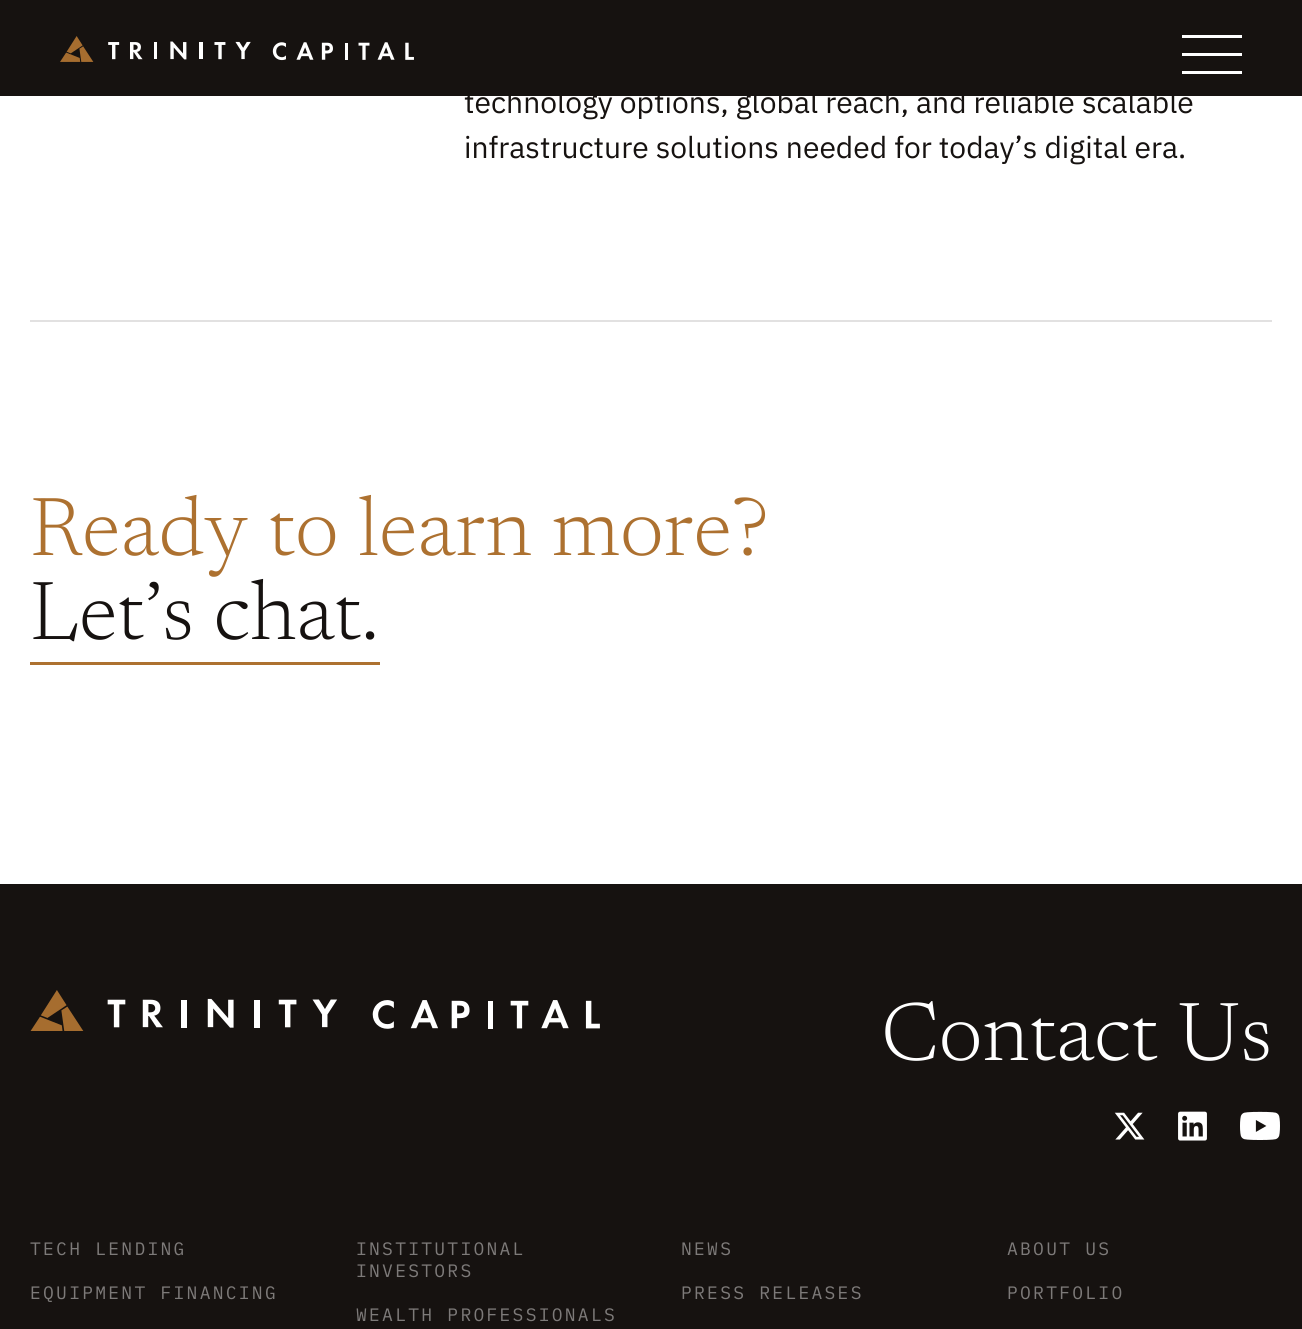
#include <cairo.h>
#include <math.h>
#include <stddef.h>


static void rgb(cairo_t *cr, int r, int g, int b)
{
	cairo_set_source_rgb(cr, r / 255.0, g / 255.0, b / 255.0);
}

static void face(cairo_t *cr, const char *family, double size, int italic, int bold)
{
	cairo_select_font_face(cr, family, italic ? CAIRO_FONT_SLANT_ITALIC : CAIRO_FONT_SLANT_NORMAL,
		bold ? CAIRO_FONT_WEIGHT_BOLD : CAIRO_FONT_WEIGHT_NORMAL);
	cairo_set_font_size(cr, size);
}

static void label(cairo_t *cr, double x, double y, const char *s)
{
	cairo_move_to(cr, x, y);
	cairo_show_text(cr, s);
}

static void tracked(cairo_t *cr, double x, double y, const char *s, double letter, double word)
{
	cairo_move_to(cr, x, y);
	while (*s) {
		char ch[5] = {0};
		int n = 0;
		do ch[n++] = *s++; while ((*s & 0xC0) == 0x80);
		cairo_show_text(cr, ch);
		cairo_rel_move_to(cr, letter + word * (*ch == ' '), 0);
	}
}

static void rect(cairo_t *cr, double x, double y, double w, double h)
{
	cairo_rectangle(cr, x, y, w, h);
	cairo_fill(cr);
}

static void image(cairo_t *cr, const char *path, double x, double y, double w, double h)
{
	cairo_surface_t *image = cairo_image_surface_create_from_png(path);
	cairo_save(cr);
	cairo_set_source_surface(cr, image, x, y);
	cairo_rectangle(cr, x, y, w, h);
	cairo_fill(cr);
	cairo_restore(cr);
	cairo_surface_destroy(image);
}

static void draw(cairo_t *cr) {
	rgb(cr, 255, 255, 255);
	cairo_paint(cr);
	rgb(cr, 22, 18, 16);
	rect(cr, 0, 0, 1302, 96);
	image(cr, "image0.png", 60, 36, 354, 26);
	rgb(cr, 255, 255, 255);
	rect(cr, 1182, 35, 60, 3);
	rect(cr, 1182, 53, 60, 3);
	rect(cr, 1182, 71, 60, 3);
	face(cr, "IBM Plex Sans", 30, 0, 0);
	rgb(cr, 22, 18, 16);
	label(cr, 464, 113, "technology options, global reach, and reliable scalable");
	label(cr, 464, 158, "infrastructure solutions needed for today’s digital era.");
	rgb(cr, 226, 225, 225);
	rect(cr, 30, 320, 1242, 2);
	face(cr, "Newsreader Light", 84, 0, 0);
	rgb(cr, 173, 113, 48);
	label(cr, 30, 555, "Ready to learn more?");
	rgb(cr, 22, 18, 16);
	label(cr, 30, 639, "Let’s chat.");
	rgb(cr, 173, 113, 48);
	rect(cr, 30, 662, 350, 3);
	rgb(cr, 22, 18, 16);
	rect(cr, 0, 884, 1302, 445);
	image(cr, "image1.png", 30, 990, 570, 41);
	rgb(cr, 255, 255, 255);
	label(cr, 881, 1060, "Contact Us");
	image(cr, "image2.png", 1114, 1112, 31, 28);
	image(cr, "image3.png", 1178, 1111, 29, 30);
	image(cr, "image4.png", 1240, 1111, 40, 29);
	face(cr, "IBM Plex Mono", 18, 0, 0);
	rgb(cr, 125, 122, 121);
	tracked(cr, 30, 1255, "TECH LENDING", 2.25, 0);
	tracked(cr, 30, 1299, "EQUIPMENT FINANCING", 2.25, 0);
	tracked(cr, 356, 1255, "INSTITUTIONAL", 2.25, 0);
	tracked(cr, 356, 1277, "INVESTORS", 2.25, 0);
	tracked(cr, 356, 1321, "WEALTH PROFESSIONALS", 2.25, 0);
	tracked(cr, 681, 1255, "NEWS", 2.25, 0);
	tracked(cr, 681, 1299, "PRESS RELEASES", 2.25, 0);
	tracked(cr, 1007, 1255, "ABOUT US", 2.25, 0);
	tracked(cr, 1007, 1299, "PORTFOLIO", 2.25, 0);
}

int main(void) {
	cairo_surface_t *surface = cairo_image_surface_create(CAIRO_FORMAT_RGB24, 1302, 1329);
	cairo_t *cr = cairo_create(surface);
	cairo_font_options_t *options = cairo_font_options_create();
	cairo_font_options_set_hint_metrics(options, CAIRO_HINT_METRICS_OFF);
	cairo_font_options_set_hint_style(options, CAIRO_HINT_STYLE_NONE);
	cairo_set_font_options(cr, options);
	cairo_set_miter_limit(cr, 4);
	draw(cr);
	cairo_surface_write_to_png(surface, "render.png");
	cairo_font_options_destroy(options);
	cairo_destroy(cr);
	cairo_surface_destroy(surface);
	return 0;
}
